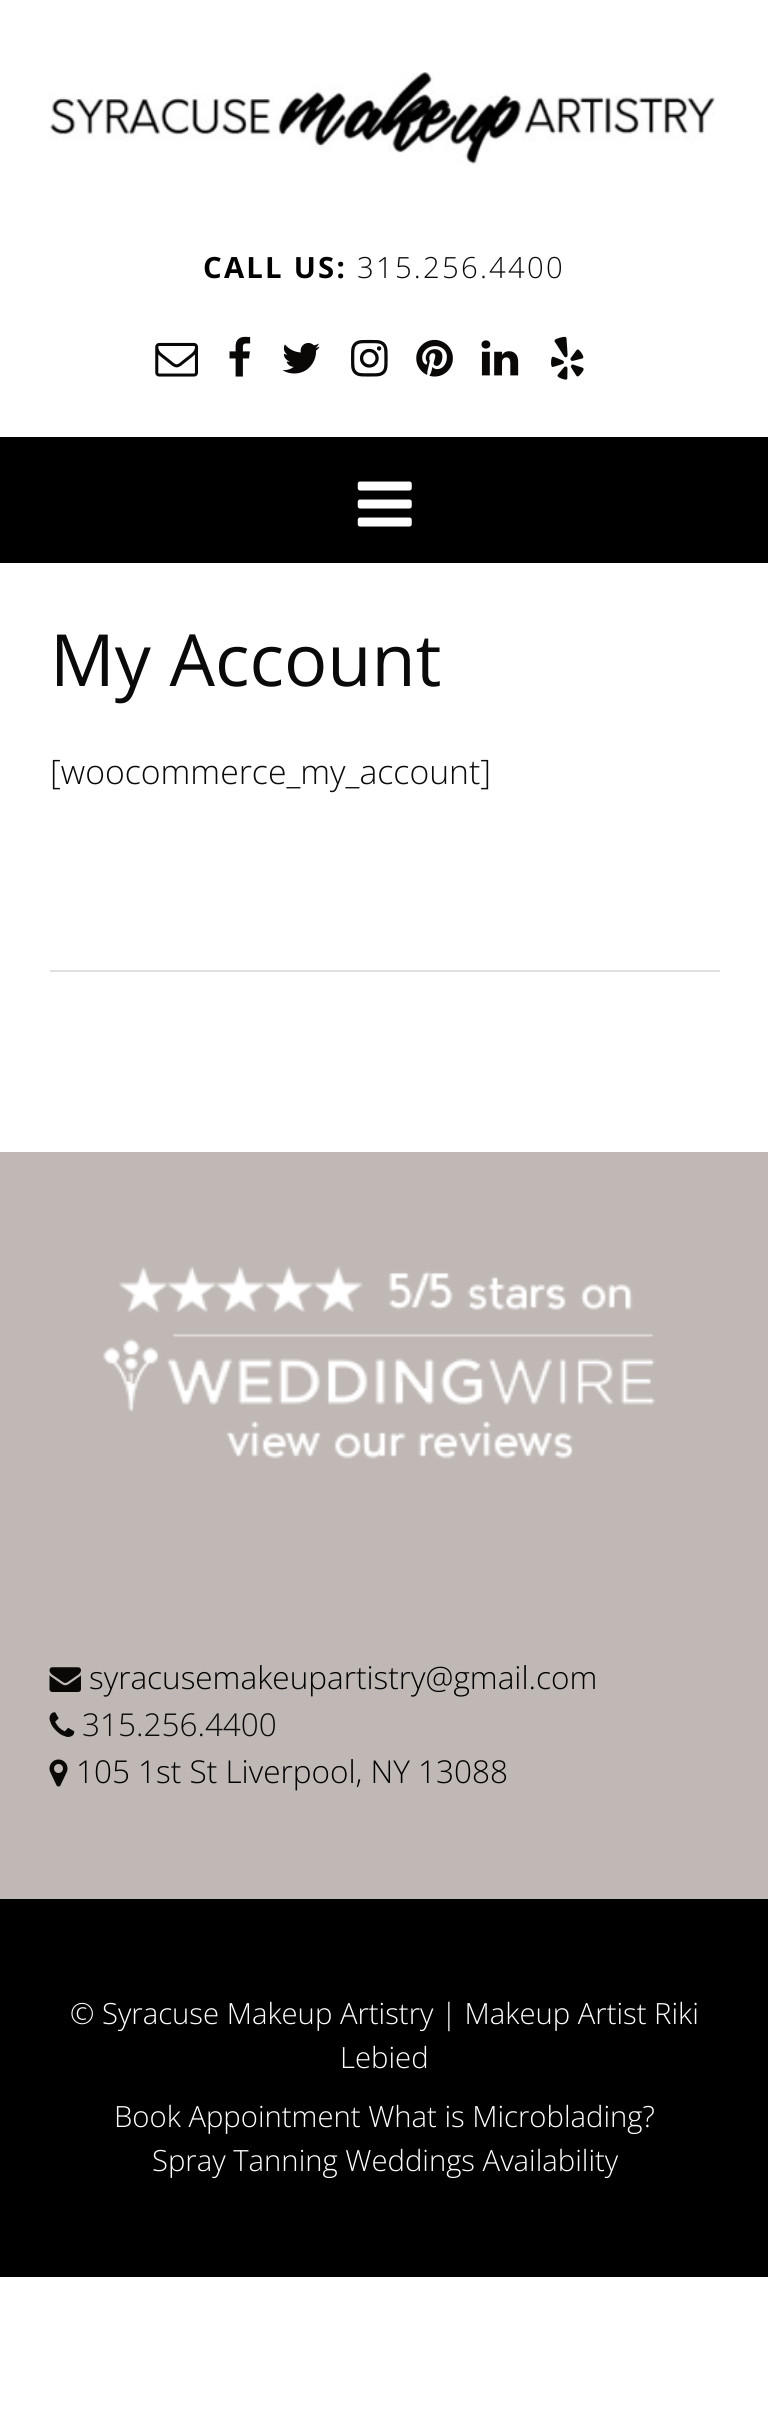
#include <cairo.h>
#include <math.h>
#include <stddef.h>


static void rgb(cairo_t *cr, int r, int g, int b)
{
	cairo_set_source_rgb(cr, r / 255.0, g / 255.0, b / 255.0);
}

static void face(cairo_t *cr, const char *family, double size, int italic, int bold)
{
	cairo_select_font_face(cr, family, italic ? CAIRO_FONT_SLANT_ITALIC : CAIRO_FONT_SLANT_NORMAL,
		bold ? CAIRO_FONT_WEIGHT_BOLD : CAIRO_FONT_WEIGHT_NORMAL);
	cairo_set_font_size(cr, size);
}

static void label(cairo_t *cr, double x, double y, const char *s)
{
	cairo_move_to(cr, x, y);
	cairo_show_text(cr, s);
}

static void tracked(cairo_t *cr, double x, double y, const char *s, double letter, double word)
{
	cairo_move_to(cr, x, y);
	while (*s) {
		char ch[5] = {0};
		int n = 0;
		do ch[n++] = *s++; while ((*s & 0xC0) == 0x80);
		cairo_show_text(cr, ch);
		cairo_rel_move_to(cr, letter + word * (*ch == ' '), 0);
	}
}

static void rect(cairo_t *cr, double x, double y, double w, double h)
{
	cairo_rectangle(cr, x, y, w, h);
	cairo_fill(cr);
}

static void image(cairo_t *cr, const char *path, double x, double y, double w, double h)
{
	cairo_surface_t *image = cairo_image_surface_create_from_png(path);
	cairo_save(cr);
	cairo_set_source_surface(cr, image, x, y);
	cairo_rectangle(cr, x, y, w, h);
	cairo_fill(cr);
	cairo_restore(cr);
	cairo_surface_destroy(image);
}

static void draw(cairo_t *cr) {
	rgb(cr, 255, 255, 255);
	cairo_paint(cr);
	image(cr, "image0.png", 49, 72, 666, 92);
	face(cr, "Open Sans", 29.25, 0, 1);
	rgb(cr, 0, 0, 0);
	tracked(cr, 203, 278, "CALL US:", 2.25, 0);
	face(cr, "Open Sans Light", 29.25, 0, 0);
	rgb(cr, 10, 10, 10);
	tracked(cr, 357, 278, "315.256.4400", 2.25, 0);
	image(cr, "image1.png", 155, 342, 43, 35);
	image(cr, "image2.png", 229, 336, 22, 41);
	image(cr, "image3.png", 282, 343, 38, 31);
	image(cr, "image4.png", 351, 339, 37, 38);
	image(cr, "image5.png", 416, 339, 37, 38);
	image(cr, "image6.png", 481, 340, 38, 36);
	image(cr, "image7.png", 551, 336, 33, 44);
	rgb(cr, 0, 0, 0);
	rect(cr, 0, 437, 768, 126);
	image(cr, "image8.png", 357, 481, 55, 46);
	face(cr, "Open Sans", 72, 0, 0);
	rgb(cr, 10, 10, 10);
	label(cr, 50, 686, "My Account");
	face(cr, "Open Sans Light", 33.75, 0, 0);
	label(cr, 50, 784, "[woocommerce_my_account]");
	rgb(cr, 224, 224, 224);
	rect(cr, 50, 970, 670, 2);
	rgb(cr, 191, 184, 181);
	rect(cr, 0, 1152, 768, 747);
	image(cr, "image9.png", 103, 1266, 553, 193);
	image(cr, "image10.png", 49, 1667, 32, 25);
	face(cr, "Open Sans Light", 31.5, 0, 0);
	rgb(cr, 0, 0, 0);
	label(cr, 89, 1689, "syracusemakeupartistry@gmail.com");
	image(cr, "image11.png", 49, 1712, 26, 25);
	rgb(cr, 10, 10, 10);
	label(cr, 82, 1736, "315.256.4400");
	image(cr, "image12.png", 49, 1759, 19, 28);
	rgb(cr, 0, 0, 0);
	label(cr, 76, 1783, "105 1st St Liverpool, NY 13088");
	rect(cr, 0, 1899, 768, 378);
	face(cr, "Open Sans Light", 29.25, 0, 0);
	rgb(cr, 255, 255, 255);
	label(cr, 70, 2024, "© Syracuse Makeup Artistry | Makeup Artist Riki");
	label(cr, 340, 2068, "Lebied");
	label(cr, 114, 2127, "Book Appointment What is Microblading?");
	label(cr, 152, 2171, "Spray Tanning Weddings Availability");
}

int main(void) {
	cairo_surface_t *surface = cairo_image_surface_create(CAIRO_FORMAT_RGB24, 768, 2410);
	cairo_t *cr = cairo_create(surface);
	cairo_font_options_t *options = cairo_font_options_create();
	cairo_font_options_set_hint_metrics(options, CAIRO_HINT_METRICS_OFF);
	cairo_font_options_set_hint_style(options, CAIRO_HINT_STYLE_NONE);
	cairo_set_font_options(cr, options);
	cairo_set_miter_limit(cr, 4);
	draw(cr);
	cairo_surface_write_to_png(surface, "render.png");
	cairo_font_options_destroy(options);
	cairo_destroy(cr);
	cairo_surface_destroy(surface);
	return 0;
}
